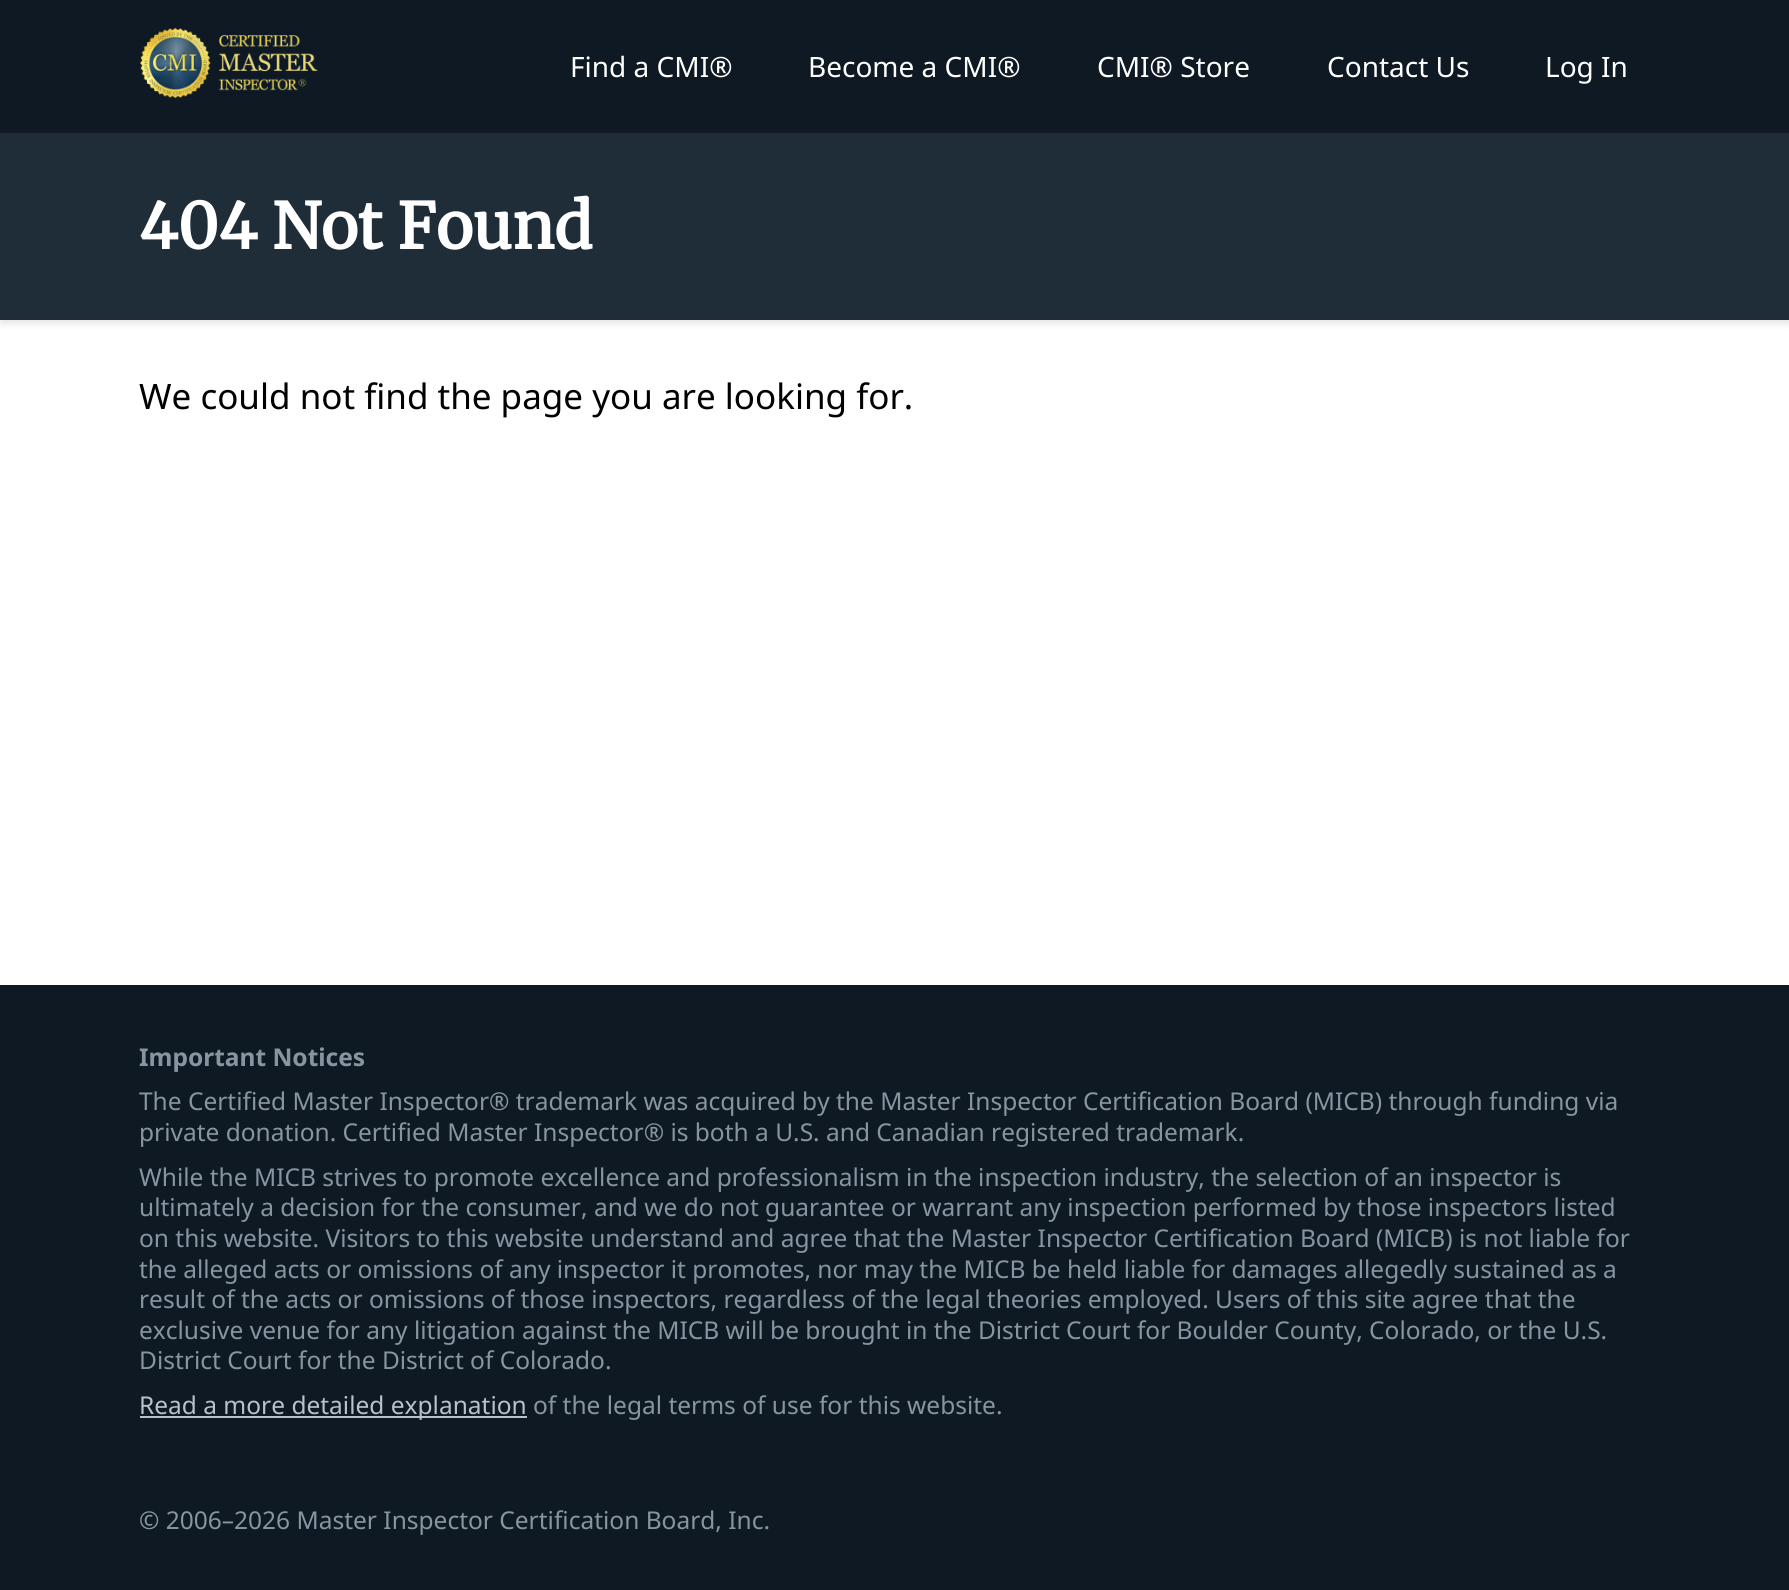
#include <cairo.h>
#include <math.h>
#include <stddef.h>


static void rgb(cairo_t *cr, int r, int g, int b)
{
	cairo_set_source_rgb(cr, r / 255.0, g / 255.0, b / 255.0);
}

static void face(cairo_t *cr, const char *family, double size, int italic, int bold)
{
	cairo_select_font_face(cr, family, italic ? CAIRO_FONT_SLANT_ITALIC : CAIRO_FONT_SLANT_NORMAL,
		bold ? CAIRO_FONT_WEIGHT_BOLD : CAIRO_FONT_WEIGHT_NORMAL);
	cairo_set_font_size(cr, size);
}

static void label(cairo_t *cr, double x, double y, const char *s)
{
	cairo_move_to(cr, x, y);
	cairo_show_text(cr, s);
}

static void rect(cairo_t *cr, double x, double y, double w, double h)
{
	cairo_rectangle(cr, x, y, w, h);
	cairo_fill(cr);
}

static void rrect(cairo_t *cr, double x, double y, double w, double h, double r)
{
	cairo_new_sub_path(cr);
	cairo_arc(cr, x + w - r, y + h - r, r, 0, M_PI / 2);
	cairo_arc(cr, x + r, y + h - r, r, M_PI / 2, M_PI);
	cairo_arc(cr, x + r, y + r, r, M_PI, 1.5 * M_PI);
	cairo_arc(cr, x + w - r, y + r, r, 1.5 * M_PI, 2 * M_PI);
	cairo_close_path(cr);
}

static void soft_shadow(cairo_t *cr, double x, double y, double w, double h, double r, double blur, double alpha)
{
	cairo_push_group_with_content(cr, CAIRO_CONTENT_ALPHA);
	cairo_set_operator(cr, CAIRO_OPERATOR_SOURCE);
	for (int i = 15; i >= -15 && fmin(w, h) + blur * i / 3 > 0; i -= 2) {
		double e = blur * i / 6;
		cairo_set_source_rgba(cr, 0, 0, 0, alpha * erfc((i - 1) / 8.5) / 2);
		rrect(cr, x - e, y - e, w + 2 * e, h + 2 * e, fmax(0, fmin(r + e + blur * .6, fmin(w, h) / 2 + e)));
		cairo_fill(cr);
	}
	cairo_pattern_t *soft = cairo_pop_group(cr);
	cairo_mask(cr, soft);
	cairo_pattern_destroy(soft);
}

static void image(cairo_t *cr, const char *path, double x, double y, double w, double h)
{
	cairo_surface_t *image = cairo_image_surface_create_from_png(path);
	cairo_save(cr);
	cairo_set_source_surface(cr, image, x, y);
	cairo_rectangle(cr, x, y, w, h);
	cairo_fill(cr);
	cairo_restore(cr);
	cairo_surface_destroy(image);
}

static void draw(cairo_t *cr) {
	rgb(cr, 255, 255, 255);
	cairo_paint(cr);
	rgb(cr, 15, 25, 35);
	rect(cr, 0, 0, 1789, 133);
	rgb(cr, 31, 45, 57);
	rect(cr, 0, 133, 1789, 2);
	image(cr, "image0.png", 140, 28, 178, 70);
	face(cr, "Noto Sans", 28, 0, 0);
	rgb(cr, 255, 255, 255);
	label(cr, 570, 77, "Find a CMI®");
	label(cr, 808, 77, "Become a CMI®");
	label(cr, 1097, 77, "CMI® Store");
	label(cr, 1327, 77, "Contact Us");
	label(cr, 1545, 77, "Log In");
	rgb(cr, 0, 0, 0);
	soft_shadow(cr, 0, 138, 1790, 186, 0, 3.5, 0.1);
	rgb(cr, 31, 45, 57);
	rect(cr, 0, 135, 1789, 185);
	face(cr, "Merriweather", 63, 0, 1);
	rgb(cr, 255, 255, 255);
	label(cr, 139, 249, "404 Not Found");
	face(cr, "Noto Sans", 35, 0, 0);
	rgb(cr, 0, 0, 0);
	label(cr, 139, 409, "We could not find the page you are looking for.");
	rgb(cr, 15, 25, 35);
	rect(cr, 0, 985, 1789, 605);
	face(cr, "Noto Sans", 24.5, 0, 1);
	rgb(cr, 135, 149, 161);
	label(cr, 139, 1066, "Important Notices");
	face(cr, "Noto Sans", 24.5, 0, 0);
	label(cr, 139, 1110, "The Certified Master Inspector® trademark was acquired by the Master Inspector Certification Board (MICB) through funding via");
	label(cr, 139, 1141, "private donation. Certified Master Inspector® is both a U.S. and Canadian registered trademark.");
	label(cr, 139, 1186, "While the MICB strives to promote excellence and professionalism in the inspection industry, the selection of an inspector is");
	label(cr, 139, 1216, "ultimately a decision for the consumer, and we do not guarantee or warrant any inspection performed by those inspectors listed");
	label(cr, 139, 1247, "on this website. Visitors to this website understand and agree that the Master Inspector Certification Board (MICB) is not liable for");
	label(cr, 139, 1278, "the alleged acts or omissions of any inspector it promotes, nor may the MICB be held liable for damages allegedly sustained as a");
	label(cr, 139, 1308, "result of the acts or omissions of those inspectors, regardless of the legal theories employed. Users of this site agree that the");
	label(cr, 139, 1339, "exclusive venue for any litigation against the MICB will be brought in the District Court for Boulder County, Colorado, or the U.S.");
	label(cr, 139, 1369, "District Court for the District of Colorado.");
	rgb(cr, 184, 194, 204);
	rect(cr, 140, 1416, 387, 2);
	label(cr, 139, 1414, "Read a more detailed explanation");
	rgb(cr, 135, 149, 161);
	label(cr, 533, 1414, "of the legal terms of use for this website.");
	label(cr, 139, 1529, "© 2006–2026 Master Inspector Certification Board, Inc.");
}

int main(void) {
	cairo_surface_t *surface = cairo_image_surface_create(CAIRO_FORMAT_RGB24, 1789, 1590);
	cairo_t *cr = cairo_create(surface);
	cairo_font_options_t *options = cairo_font_options_create();
	cairo_font_options_set_hint_metrics(options, CAIRO_HINT_METRICS_OFF);
	cairo_font_options_set_hint_style(options, CAIRO_HINT_STYLE_NONE);
	cairo_set_font_options(cr, options);
	cairo_set_miter_limit(cr, 4);
	draw(cr);
	cairo_surface_write_to_png(surface, "render.png");
	cairo_font_options_destroy(options);
	cairo_destroy(cr);
	cairo_surface_destroy(surface);
	return 0;
}
